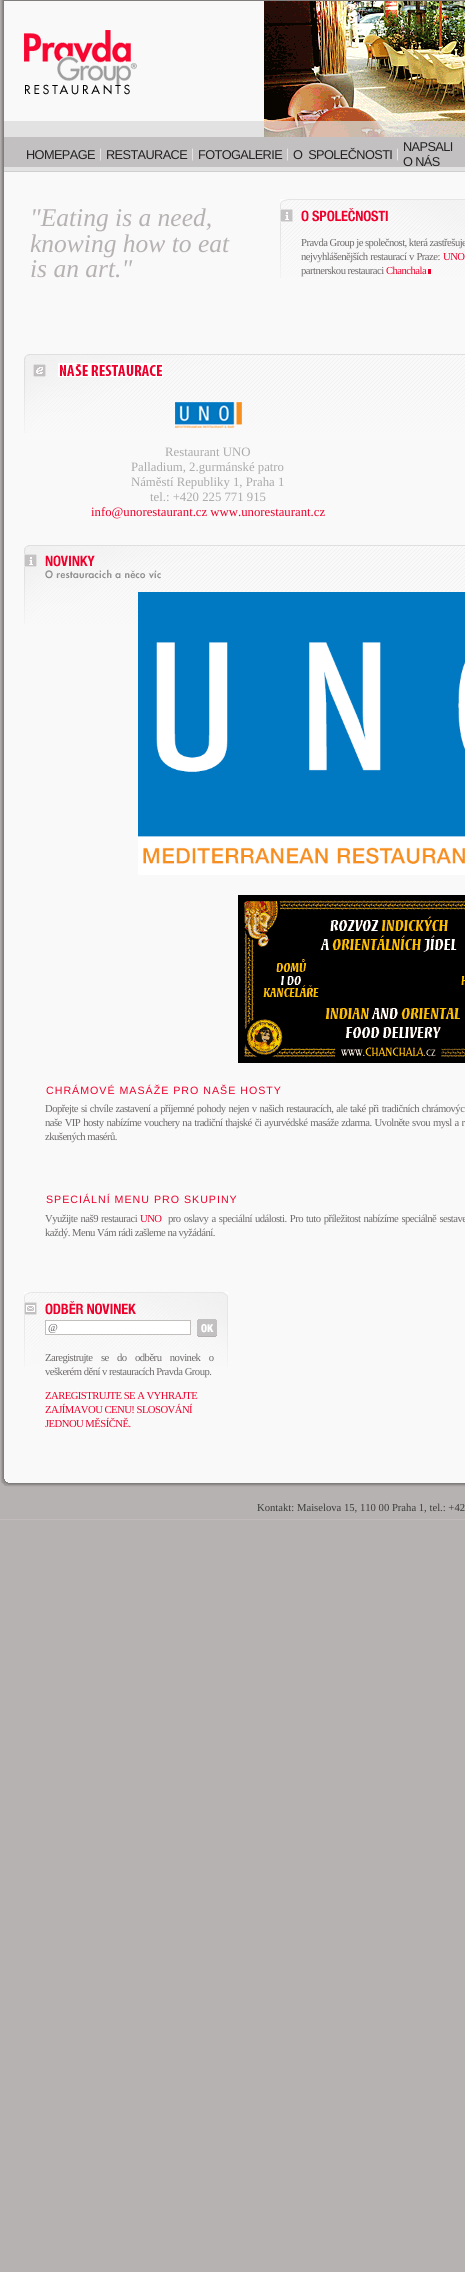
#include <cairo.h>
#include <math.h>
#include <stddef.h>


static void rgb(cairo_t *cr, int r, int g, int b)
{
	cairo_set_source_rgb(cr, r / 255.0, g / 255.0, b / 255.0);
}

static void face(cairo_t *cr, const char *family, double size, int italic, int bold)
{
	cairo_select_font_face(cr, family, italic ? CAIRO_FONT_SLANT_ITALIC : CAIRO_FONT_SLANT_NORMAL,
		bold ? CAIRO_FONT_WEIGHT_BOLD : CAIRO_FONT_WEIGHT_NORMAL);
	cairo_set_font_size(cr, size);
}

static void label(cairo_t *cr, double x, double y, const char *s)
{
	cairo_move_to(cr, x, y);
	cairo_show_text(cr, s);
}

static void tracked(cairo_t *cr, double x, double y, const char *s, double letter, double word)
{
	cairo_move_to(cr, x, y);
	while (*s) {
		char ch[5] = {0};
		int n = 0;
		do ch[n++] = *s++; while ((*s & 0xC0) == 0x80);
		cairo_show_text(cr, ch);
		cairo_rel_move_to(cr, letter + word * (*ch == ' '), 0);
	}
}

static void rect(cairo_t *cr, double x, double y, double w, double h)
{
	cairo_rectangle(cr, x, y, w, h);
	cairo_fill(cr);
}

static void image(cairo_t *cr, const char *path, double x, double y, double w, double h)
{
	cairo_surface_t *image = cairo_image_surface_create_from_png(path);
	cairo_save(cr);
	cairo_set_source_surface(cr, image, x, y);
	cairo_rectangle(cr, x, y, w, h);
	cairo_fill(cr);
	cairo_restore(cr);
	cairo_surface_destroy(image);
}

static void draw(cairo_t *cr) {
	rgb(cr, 182, 178, 177);
	cairo_paint(cr);
	rgb(cr, 249, 249, 249);
	rect(cr, 4, 1, 461, 1470);
	image(cr, "image0.png", 0, 0, 4, 1471);
	rgb(cr, 128, 125, 125);
	rect(cr, 4, 0, 461, 1);
	rgb(cr, 227, 226, 226);
	rect(cr, 4, 121, 260, 16);
	image(cr, "image1.png", 24, 30, 113, 65);
	image(cr, "image2.png", 264, 1, 201, 136);
	image(cr, "image3.png", 4, 137, 461, 35);
	face(cr, "Liberation Sans", 12.75, 0, 0);
	rgb(cr, 34, 34, 34);
	tracked(cr, 26, 159, "HOMEPAGE", -0.6, 0);
	image(cr, "image4.png", 100, 148, 1, 13);
	tracked(cr, 106, 159, "RESTAURACE", -0.6, 0);
	image(cr, "image4.png", 192, 148, 1, 13);
	tracked(cr, 198, 159, "FOTOGALERIE", -0.6, 0);
	image(cr, "image4.png", 287, 148, 1, 13);
	tracked(cr, 293, 159, "O  SPOLEČNOSTI", -0.6, 0);
	image(cr, "image4.png", 397, 148, 1, 13);
	tracked(cr, 403, 151, "NAPSALI", -0.6, 0);
	tracked(cr, 403, 166, "O NÁS", -0.6, 0);
	face(cr, "Liberation Serif", 25.5, 1, 0);
	rgb(cr, 182, 178, 177);
	label(cr, 30, 226, "\"Eating is a need,");
	label(cr, 30, 252, "knowing how to eat");
	label(cr, 30, 277, "is an art.\"");
	image(cr, "image5.png", 280, 199, 185, 79);
	image(cr, "image6.png", 280, 209, 13, 13);
	image(cr, "image7.png", 301, 208, 87, 14);
	face(cr, "Liberation Serif", 10.65, 0, 0);
	rgb(cr, 109, 105, 105);
	tracked(cr, 301, 246, "Pravda Group je společnost, která zastřešuje", -0.53, 0);
	tracked(cr, 301, 260, "nejvyhlášenějších restaurací v Praze:", -0.53, 0.5);
	rgb(cr, 237, 0, 43);
	tracked(cr, 443, 260, "UNO", -0.53, 0);
	rgb(cr, 109, 105, 105);
	tracked(cr, 301, 274, "partnerskou restauraci", -0.53, 0);
	rgb(cr, 237, 0, 43);
	tracked(cr, 386, 274, "Chanchala", -0.53, 0);
	rect(cr, 428, 269, 3, 5);
	image(cr, "image8.png", 24, 354, 441, 79);
	image(cr, "image9.png", 33, 364, 13, 13);
	image(cr, "image10.png", 58, 363, 105, 14);
	image(cr, "image11.png", 175, 402, 67, 26);
	face(cr, "Liberation Serif", 12.75, 0, 0);
	rgb(cr, 170, 170, 170);
	label(cr, 165, 456, "Restaurant UNO");
	label(cr, 131, 471, "Palladium, 2.gurmánské patro");
	label(cr, 131, 486, "Náměstí Republiky 1, Praha 1");
	label(cr, 150, 501, "tel.: +420 225 771 915");
	rgb(cr, 237, 0, 43);
	label(cr, 91, 516, "info@unorestaurant.cz www.unorestaurant.cz");
	image(cr, "image8.png", 24, 545, 441, 79);
	image(cr, "image6.png", 24, 554, 13, 13);
	image(cr, "image12.png", 45, 555, 50, 12);
	image(cr, "image13.png", 45, 569, 116, 10);
	image(cr, "image14.png", 138, 592, 327, 283);
	image(cr, "image15.png", 238, 895, 227, 168);
	face(cr, "Liberation Sans", 10.65, 0, 0);
	tracked(cr, 46, 1094, "CHRÁMOVÉ MASÁŽE PRO NAŠE HOSTY", 1, 0);
	face(cr, "Liberation Serif", 10.65, 0, 0);
	rgb(cr, 109, 105, 105);
	tracked(cr, 45, 1112, "Dopřejte si chvíle zastavení a příjemné pohody nejen v našich restauracích, ale také při tradičních chrámovýc", -0.53, 0.75);
	tracked(cr, 45, 1126, "naše VIP hosty nabízíme vouchery na tradiční thajské či ayurvédské masáže zdarma. Uvolněte svou mysl a r", -0.53, 0.75);
	tracked(cr, 45, 1140, "zkušených masérů.", -0.53, 0);
	face(cr, "Liberation Sans", 10.65, 0, 0);
	rgb(cr, 237, 0, 43);
	tracked(cr, 46, 1203, "SPECIÁLNÍ MENU PRO SKUPINY", 1, 0);
	face(cr, "Liberation Serif", 10.65, 0, 0);
	rgb(cr, 109, 105, 105);
	tracked(cr, 45, 1222, "Využijte naš9 restauraci", -0.53, 1);
	rgb(cr, 237, 0, 43);
	tracked(cr, 140, 1222, "UNO", -0.53, 0);
	rgb(cr, 109, 105, 105);
	tracked(cr, 168, 1222, "pro oslavy a speciální události. Pro tuto příležitost nabízíme speciálně sestave", -0.53, 1);
	tracked(cr, 45, 1236, "každý. Menu Vám rádi zašleme na vyžádání.", -0.53, 0);
	image(cr, "image16.png", 24, 1292, 204, 75);
	image(cr, "image17.png", 24, 1302, 13, 13);
	image(cr, "image18.png", 45, 1301, 91, 14);
	rgb(cr, 255, 255, 255);
	cairo_rectangle(cr, 45.5, 1320.5, 145, 14);
	cairo_fill_preserve(cr);
	rgb(cr, 194, 190, 190);
	cairo_set_line_width(cr, 1);
	cairo_stroke(cr);
	rgb(cr, 95, 95, 95);
	label(cr, 48, 1331, "@");
	image(cr, "image19.png", 197, 1319, 20, 18);
	rgb(cr, 109, 105, 105);
	tracked(cr, 45, 1361, "Zaregistrujte se do odběru novinek o", -0.53, 6.25);
	tracked(cr, 45, 1375, "veškerém dění v restauracích Pravda Group.", -0.53, 0);
	rgb(cr, 237, 0, 43);
	tracked(cr, 45, 1399, "ZAREGISTRUJTE SE A VYHRAJTE", -0.53, 0);
	tracked(cr, 45, 1413, "ZAJÍMAVOU CENU! SLOSOVÁNÍ", -0.53, 0);
	tracked(cr, 45, 1427, "JEDNOU MĚSÍČNĚ.", -0.53, 0);
	image(cr, "image20.png", 0, 1471, 465, 16);
	rgb(cr, 59, 59, 59);
	label(cr, 257, 1511, "Kontakt: Maiselova 15, 110 00 Praha 1, tel.: +42");
	rgb(cr, 193, 187, 187);
	rect(cr, 0, 1519, 465, 1);
}

int main(void) {
	cairo_surface_t *surface = cairo_image_surface_create(CAIRO_FORMAT_RGB24, 465, 2272);
	cairo_t *cr = cairo_create(surface);
	cairo_font_options_t *options = cairo_font_options_create();
	cairo_font_options_set_hint_metrics(options, CAIRO_HINT_METRICS_OFF);
	cairo_font_options_set_hint_style(options, CAIRO_HINT_STYLE_NONE);
	cairo_set_font_options(cr, options);
	cairo_set_miter_limit(cr, 4);
	draw(cr);
	cairo_surface_write_to_png(surface, "render.png");
	cairo_font_options_destroy(options);
	cairo_destroy(cr);
	cairo_surface_destroy(surface);
	return 0;
}
